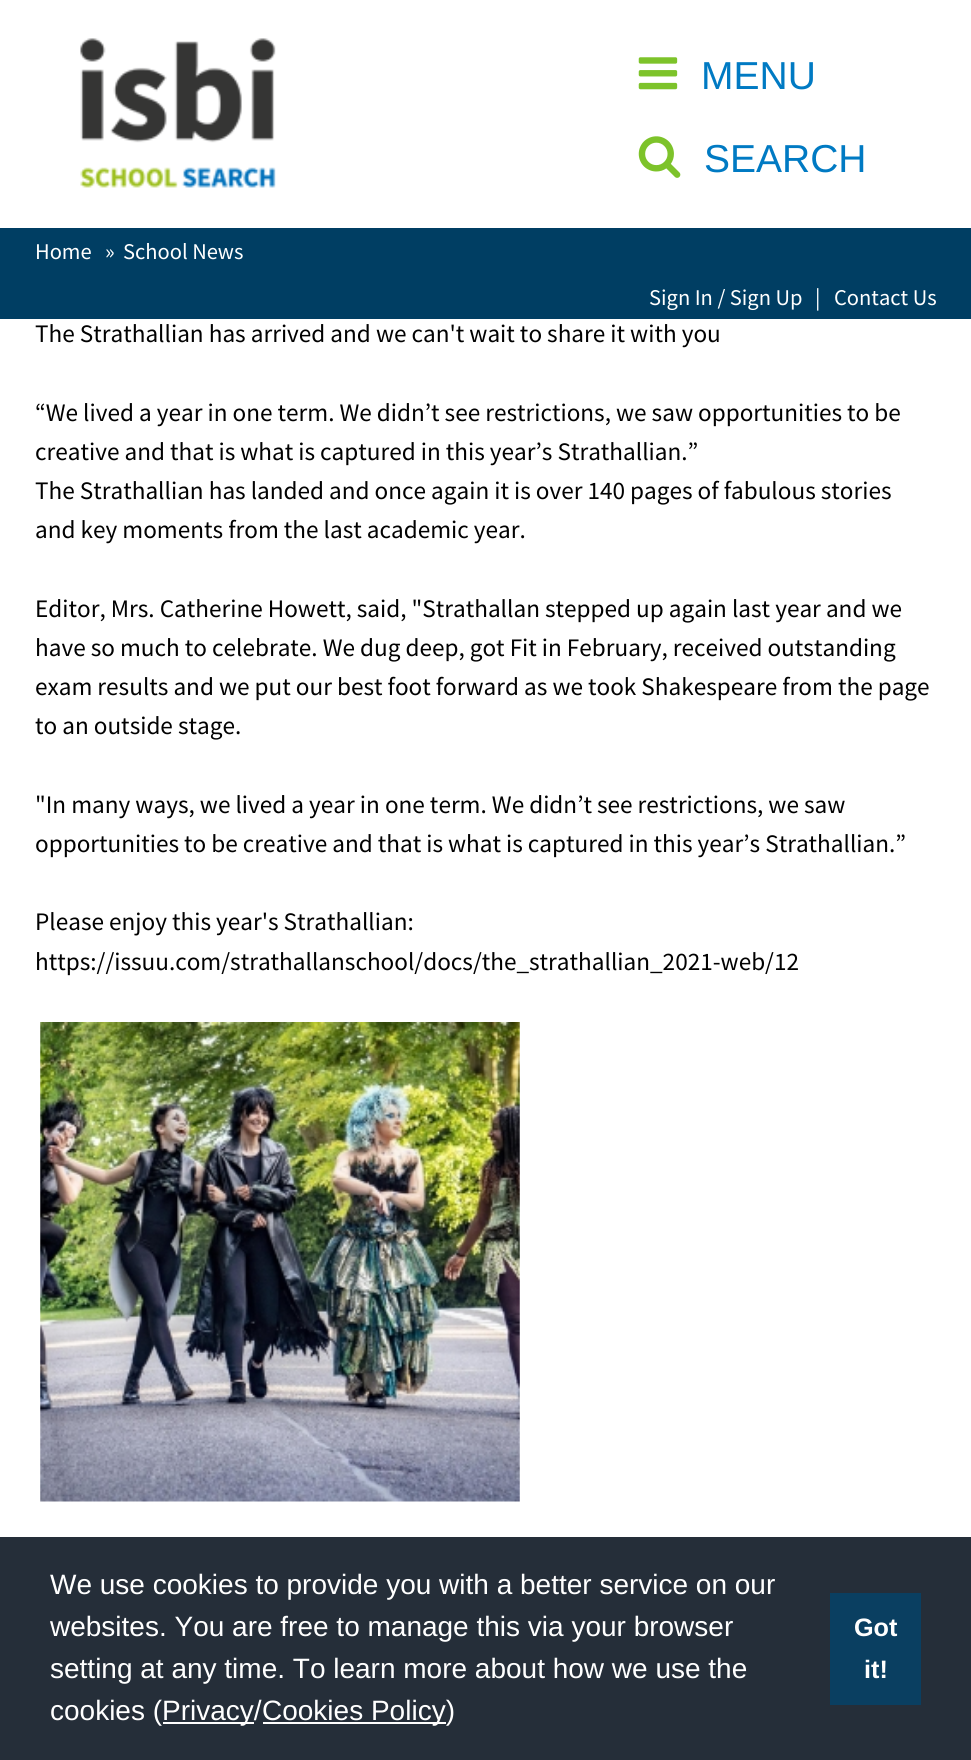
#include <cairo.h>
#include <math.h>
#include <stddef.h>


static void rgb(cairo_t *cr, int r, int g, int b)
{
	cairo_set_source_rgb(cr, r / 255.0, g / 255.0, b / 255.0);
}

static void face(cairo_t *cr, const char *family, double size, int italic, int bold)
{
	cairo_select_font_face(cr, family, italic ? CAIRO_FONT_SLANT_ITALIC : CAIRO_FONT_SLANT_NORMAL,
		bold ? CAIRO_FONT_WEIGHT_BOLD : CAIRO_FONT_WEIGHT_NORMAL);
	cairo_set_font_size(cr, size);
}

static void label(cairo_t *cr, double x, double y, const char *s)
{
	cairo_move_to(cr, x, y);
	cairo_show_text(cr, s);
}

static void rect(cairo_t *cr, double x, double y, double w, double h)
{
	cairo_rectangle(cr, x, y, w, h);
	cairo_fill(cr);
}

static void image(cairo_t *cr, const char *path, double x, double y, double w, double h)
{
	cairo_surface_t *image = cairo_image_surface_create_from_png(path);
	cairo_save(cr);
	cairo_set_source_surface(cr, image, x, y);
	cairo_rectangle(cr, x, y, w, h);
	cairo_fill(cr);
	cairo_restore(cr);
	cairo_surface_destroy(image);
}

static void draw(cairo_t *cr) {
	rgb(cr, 255, 255, 255);
	cairo_paint(cr);
	image(cr, "image0.png", 80, 38, 196, 150);
	image(cr, "image1.png", 638, 57, 40, 33);
	face(cr, "Liberation Sans", 39, 0, 0);
	rgb(cr, 0, 122, 195);
	label(cr, 701, 89, "MENU");
	image(cr, "image2.png", 638, 136, 43, 42);
	label(cr, 704, 172, "SEARCH");
	rgb(cr, 0, 62, 99);
	rect(cr, 0, 228, 971, 91);
	face(cr, "Source Sans Pro", 22.5, 0, 0);
	rgb(cr, 255, 255, 255);
	label(cr, 35, 259, "Home");
	label(cr, 105, 259, "»");
	label(cr, 123, 259, "School News");
	label(cr, 649, 305, "Sign In / Sign Up");
	label(cr, 815, 305, "|");
	label(cr, 834, 305, "Contact Us");
	face(cr, "Source Sans Pro", 25.2, 0, 0);
	rgb(cr, 1, 1, 1);
	label(cr, 35, 342, "The Strathallian has arrived and we can't wait to share it with you");
	label(cr, 35, 421, "“We lived a year in one term. We didn’t see restrictions, we saw opportunities to be");
	label(cr, 35, 460, "creative and that is what is captured in this year’s Strathallian.”");
	label(cr, 35, 499, "The Strathallian has landed and once again it is over 140 pages of fabulous stories");
	label(cr, 35, 538, "and key moments from the last academic year.");
	label(cr, 35, 617, "Editor, Mrs. Catherine Howett, said, \"Strathallan stepped up again last year and we");
	label(cr, 35, 656, "have so much to celebrate. We dug deep, got Fit in February, received outstanding");
	label(cr, 35, 695, "exam results and we put our best foot forward as we took Shakespeare from the page");
	label(cr, 35, 734, "to an outside stage.");
	label(cr, 35, 813, "\"In many ways, we lived a year in one term. We didn’t see restrictions, we saw");
	label(cr, 35, 852, "opportunities to be creative and that is what is captured in this year’s Strathallian.”");
	label(cr, 35, 930, "Please enjoy this year's Strathallian:");
	label(cr, 35, 970, "https://issuu.com/strathallanschool/docs/the_strathallian_2021-web/12");
	image(cr, "image3.png", 40, 1022, 480, 480);
	rgb(cr, 37, 46, 57);
	rect(cr, 0, 1537, 971, 223);
	face(cr, "Liberation Sans", 28, 0, 0);
	rgb(cr, 255, 255, 255);
	label(cr, 50, 1594, "We use cookies to provide you with a better service on our");
	label(cr, 50, 1636, "websites. You are free to manage this via your browser");
	label(cr, 50, 1678, "setting at any time. To learn more about how we use the");
	label(cr, 50, 1720, "cookies (");
	rect(cr, 163, 1722, 91, 2);
	label(cr, 162, 1720, "Privacy/");
	rect(cr, 263, 1722, 183, 2);
	label(cr, 262, 1720, "Cookies Policy)");
	rgb(cr, 10, 63, 97);
	rect(cr, 830, 1593, 91, 112);
	face(cr, "Liberation Sans", 25.2, 0, 1);
	rgb(cr, 255, 255, 255);
	label(cr, 854, 1636, "Got");
	label(cr, 864, 1678, "it!");
}

int main(void) {
	cairo_surface_t *surface = cairo_image_surface_create(CAIRO_FORMAT_RGB24, 971, 1760);
	cairo_t *cr = cairo_create(surface);
	cairo_font_options_t *options = cairo_font_options_create();
	cairo_font_options_set_hint_metrics(options, CAIRO_HINT_METRICS_OFF);
	cairo_font_options_set_hint_style(options, CAIRO_HINT_STYLE_NONE);
	cairo_set_font_options(cr, options);
	cairo_set_miter_limit(cr, 4);
	draw(cr);
	cairo_surface_write_to_png(surface, "render.png");
	cairo_font_options_destroy(options);
	cairo_destroy(cr);
	cairo_surface_destroy(surface);
	return 0;
}
